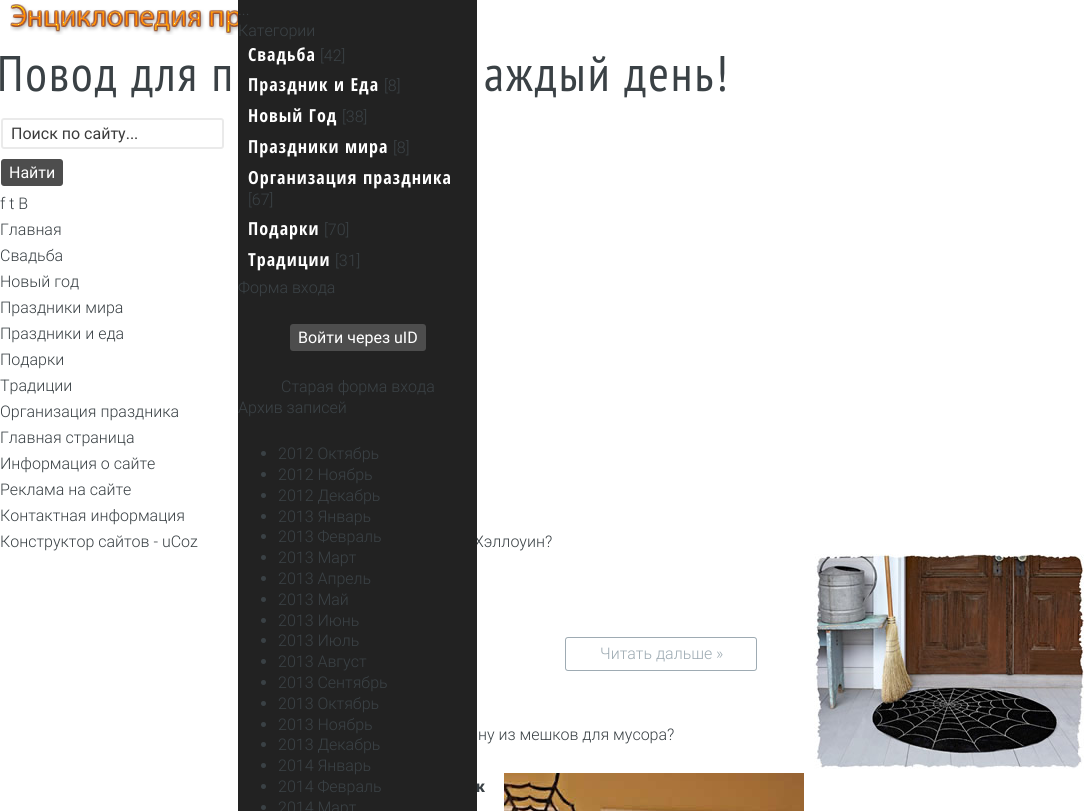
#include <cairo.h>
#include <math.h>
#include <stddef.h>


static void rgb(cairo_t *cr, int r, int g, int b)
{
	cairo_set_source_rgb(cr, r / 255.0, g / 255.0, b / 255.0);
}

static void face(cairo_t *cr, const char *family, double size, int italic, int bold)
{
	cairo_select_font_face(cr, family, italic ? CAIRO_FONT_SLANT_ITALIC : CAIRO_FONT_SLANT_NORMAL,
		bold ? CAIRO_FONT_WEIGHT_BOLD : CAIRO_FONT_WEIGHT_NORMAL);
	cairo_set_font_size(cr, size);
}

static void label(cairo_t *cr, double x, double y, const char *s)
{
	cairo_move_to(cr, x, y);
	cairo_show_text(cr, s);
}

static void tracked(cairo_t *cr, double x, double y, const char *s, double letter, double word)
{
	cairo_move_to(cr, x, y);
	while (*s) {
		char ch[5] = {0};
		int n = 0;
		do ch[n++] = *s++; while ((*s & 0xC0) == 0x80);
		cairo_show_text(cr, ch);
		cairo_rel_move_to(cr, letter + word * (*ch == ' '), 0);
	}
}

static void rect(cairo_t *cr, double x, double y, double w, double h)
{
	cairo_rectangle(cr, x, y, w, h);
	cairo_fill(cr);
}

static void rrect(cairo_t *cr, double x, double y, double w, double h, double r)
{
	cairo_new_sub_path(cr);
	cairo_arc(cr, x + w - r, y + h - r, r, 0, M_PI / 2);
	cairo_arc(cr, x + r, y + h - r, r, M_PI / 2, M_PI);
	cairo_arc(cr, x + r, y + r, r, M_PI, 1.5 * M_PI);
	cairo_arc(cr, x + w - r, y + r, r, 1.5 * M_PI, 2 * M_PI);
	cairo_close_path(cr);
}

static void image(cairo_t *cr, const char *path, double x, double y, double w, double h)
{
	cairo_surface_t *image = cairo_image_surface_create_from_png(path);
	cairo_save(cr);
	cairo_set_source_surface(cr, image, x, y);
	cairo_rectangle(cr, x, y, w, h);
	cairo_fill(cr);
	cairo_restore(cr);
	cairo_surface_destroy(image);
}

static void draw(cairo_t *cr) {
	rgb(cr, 255, 255, 255);
	cairo_paint(cr);
	face(cr, "Roboto Light", 16, 0, 0);
	rgb(cr, 58, 65, 69);
	label(cr, 474, 547, "Хэллоуин?");
	face(cr, "Roboto", 16, 0, 1);
	label(cr, 476, 792, "к");
	rgb(cr, 34, 34, 34);
	rect(cr, 238, 0, 239, 811);
	face(cr, "Roboto Light", 16, 0, 0);
	rgb(cr, 58, 65, 69);
	label(cr, 238, 15, "...");
	label(cr, 238, 36, "Категории");
	face(cr, "Open Sans Condensed", 18, 0, 1);
	rgb(cr, 255, 255, 255);
	tracked(cr, 248, 61, "Свадьба", 1, 0);
	face(cr, "Roboto Light", 16, 0, 0);
	rgb(cr, 58, 65, 69);
	label(cr, 320, 61, "[42]");
	face(cr, "Open Sans Condensed", 18, 0, 1);
	rgb(cr, 255, 255, 255);
	tracked(cr, 248, 91, "Праздник и Еда", 1, 0);
	face(cr, "Roboto Light", 16, 0, 0);
	rgb(cr, 58, 65, 69);
	label(cr, 384, 91, "[8]");
	face(cr, "Open Sans Condensed", 18, 0, 1);
	rgb(cr, 255, 255, 255);
	tracked(cr, 248, 122, "Новый Год", 1, 0);
	face(cr, "Roboto Light", 16, 0, 0);
	rgb(cr, 58, 65, 69);
	label(cr, 342, 122, "[38]");
	face(cr, "Open Sans Condensed", 18, 0, 1);
	rgb(cr, 255, 255, 255);
	tracked(cr, 248, 153, "Праздники мира", 1, 0);
	face(cr, "Roboto Light", 16, 0, 0);
	rgb(cr, 58, 65, 69);
	label(cr, 393, 153, "[8]");
	face(cr, "Open Sans Condensed", 18, 0, 1);
	rgb(cr, 255, 255, 255);
	tracked(cr, 248, 184, "Организация праздника", 1, 0);
	face(cr, "Roboto Light", 16, 0, 0);
	rgb(cr, 58, 65, 69);
	label(cr, 248, 205, "[67]");
	face(cr, "Open Sans Condensed", 18, 0, 1);
	rgb(cr, 255, 255, 255);
	tracked(cr, 248, 235, "Подарки", 1, 0);
	face(cr, "Roboto Light", 16, 0, 0);
	rgb(cr, 58, 65, 69);
	label(cr, 324, 235, "[70]");
	face(cr, "Open Sans Condensed", 18, 0, 1);
	rgb(cr, 255, 255, 255);
	tracked(cr, 248, 266, "Традиции", 1, 0);
	face(cr, "Roboto Light", 16, 0, 0);
	rgb(cr, 58, 65, 69);
	label(cr, 335, 266, "[31]");
	label(cr, 238, 293, "Форма входа");
	rgb(cr, 77, 77, 77);
	rrect(cr, 290, 324, 136, 27, 3);
	cairo_fill(cr);
	face(cr, "Roboto", 16, 0, 0);
	rgb(cr, 255, 255, 255);
	label(cr, 298, 343, "Войти через uID");
	face(cr, "Roboto Light", 16, 0, 0);
	rgb(cr, 58, 65, 69);
	label(cr, 281, 392, "Старая форма входа");
	label(cr, 238, 413, "Архив записей");
	cairo_new_path(cr);
	cairo_arc(cr, 263.5, 453.5, 2.5, 0, 2 * M_PI);
	cairo_fill(cr);
	label(cr, 278, 459, "2012 Октябрь");
	cairo_new_path(cr);
	cairo_arc(cr, 263.5, 474.5, 2.5, 0, 2 * M_PI);
	cairo_fill(cr);
	label(cr, 278, 480, "2012 Ноябрь");
	cairo_new_path(cr);
	cairo_arc(cr, 263.5, 495.5, 2.5, 0, 2 * M_PI);
	cairo_fill(cr);
	label(cr, 278, 501, "2012 Декабрь");
	cairo_new_path(cr);
	cairo_arc(cr, 263.5, 516.5, 2.5, 0, 2 * M_PI);
	cairo_fill(cr);
	label(cr, 278, 522, "2013 Январь");
	cairo_new_path(cr);
	cairo_arc(cr, 263.5, 536.5, 2.5, 0, 2 * M_PI);
	cairo_fill(cr);
	label(cr, 278, 542, "2013 Февраль");
	cairo_new_path(cr);
	cairo_arc(cr, 263.5, 557.5, 2.5, 0, 2 * M_PI);
	cairo_fill(cr);
	label(cr, 278, 563, "2013 Март");
	cairo_new_path(cr);
	cairo_arc(cr, 263.5, 578.5, 2.5, 0, 2 * M_PI);
	cairo_fill(cr);
	label(cr, 278, 584, "2013 Апрель");
	cairo_new_path(cr);
	cairo_arc(cr, 263.5, 599.5, 2.5, 0, 2 * M_PI);
	cairo_fill(cr);
	label(cr, 278, 605, "2013 Май");
	cairo_new_path(cr);
	cairo_arc(cr, 263.5, 620.5, 2.5, 0, 2 * M_PI);
	cairo_fill(cr);
	label(cr, 278, 626, "2013 Июнь");
	cairo_new_path(cr);
	cairo_arc(cr, 263.5, 640.5, 2.5, 0, 2 * M_PI);
	cairo_fill(cr);
	label(cr, 278, 646, "2013 Июль");
	cairo_new_path(cr);
	cairo_arc(cr, 263.5, 661.5, 2.5, 0, 2 * M_PI);
	cairo_fill(cr);
	label(cr, 278, 667, "2013 Август");
	cairo_new_path(cr);
	cairo_arc(cr, 263.5, 682.5, 2.5, 0, 2 * M_PI);
	cairo_fill(cr);
	label(cr, 278, 688, "2013 Сентябрь");
	cairo_new_path(cr);
	cairo_arc(cr, 263.5, 703.5, 2.5, 0, 2 * M_PI);
	cairo_fill(cr);
	label(cr, 278, 709, "2013 Октябрь");
	cairo_new_path(cr);
	cairo_arc(cr, 263.5, 724.5, 2.5, 0, 2 * M_PI);
	cairo_fill(cr);
	label(cr, 278, 730, "2013 Ноябрь");
	cairo_new_path(cr);
	cairo_arc(cr, 263.5, 744.5, 2.5, 0, 2 * M_PI);
	cairo_fill(cr);
	label(cr, 278, 750, "2013 Декабрь");
	cairo_new_path(cr);
	cairo_arc(cr, 263.5, 765.5, 2.5, 0, 2 * M_PI);
	cairo_fill(cr);
	label(cr, 278, 771, "2014 Январь");
	cairo_new_path(cr);
	cairo_arc(cr, 263.5, 786.5, 2.5, 0, 2 * M_PI);
	cairo_fill(cr);
	label(cr, 278, 792, "2014 Февраль");
	cairo_new_path(cr);
	cairo_arc(cr, 263.5, 807.5, 2.5, 0, 2 * M_PI);
	cairo_fill(cr);
	label(cr, 278, 813, "2014 Март");
	rrect(cr, 565.5, 637.5, 191, 33, 2.5);
	rgb(cr, 158, 171, 179);
	cairo_set_line_width(cr, 1);
	cairo_stroke(cr);
	label(cr, 600, 659, "Читать дальше »");
	image(cr, "image0.png", 814, 554, 270, 215);
	rgb(cr, 58, 65, 69);
	label(cr, 478, 740, "ну из мешков для мусора?");
	image(cr, "image1.png", 504, 773, 300, 38);
	image(cr, "image2.png", 10, 4, 228, 31);
	face(cr, "PT Sans Narrow", 50, 0, 0);
	tracked(cr, -3, 91, "Повод для п", 2, 0);
	tracked(cr, 484, 91, "аждый день!", 2, 0);
	rrect(cr, 2, 119, 221, 29, 2);
	rgb(cr, 234, 234, 234);
	cairo_set_line_width(cr, 2);
	cairo_stroke(cr);
	face(cr, "Roboto", 16, 0, 0);
	rgb(cr, 59, 59, 59);
	label(cr, 11, 139, "Поиск по сайту...");
	rgb(cr, 77, 77, 77);
	rrect(cr, 1, 159, 62, 27, 3);
	cairo_fill(cr);
	rgb(cr, 255, 255, 255);
	label(cr, 9, 178, "Найти");
	face(cr, "Roboto Light", 16, 0, 0);
	rgb(cr, 58, 65, 69);
	label(cr, 0, 209, "f t B");
	label(cr, 0, 235, "Главная");
	label(cr, 0, 261, "Свадьба");
	label(cr, 0, 287, "Новый год");
	label(cr, 0, 313, "Праздники мира");
	label(cr, 0, 339, "Праздники и еда");
	label(cr, 0, 365, "Подарки");
	label(cr, 0, 391, "Традиции");
	label(cr, 0, 417, "Организация праздника");
	label(cr, 0, 443, "Главная страница");
	label(cr, 0, 469, "Информация о сайте");
	label(cr, 0, 495, "Реклама на сайте");
	label(cr, 0, 521, "Контактная информация");
	label(cr, 0, 547, "Конструктор сайтов - uCoz");
}

int main(void) {
	cairo_surface_t *surface = cairo_image_surface_create(CAIRO_FORMAT_RGB24, 1084, 811);
	cairo_t *cr = cairo_create(surface);
	cairo_font_options_t *options = cairo_font_options_create();
	cairo_font_options_set_hint_metrics(options, CAIRO_HINT_METRICS_OFF);
	cairo_font_options_set_hint_style(options, CAIRO_HINT_STYLE_NONE);
	cairo_set_font_options(cr, options);
	cairo_set_miter_limit(cr, 4);
	draw(cr);
	cairo_surface_write_to_png(surface, "render.png");
	cairo_font_options_destroy(options);
	cairo_destroy(cr);
	cairo_surface_destroy(surface);
	return 0;
}
